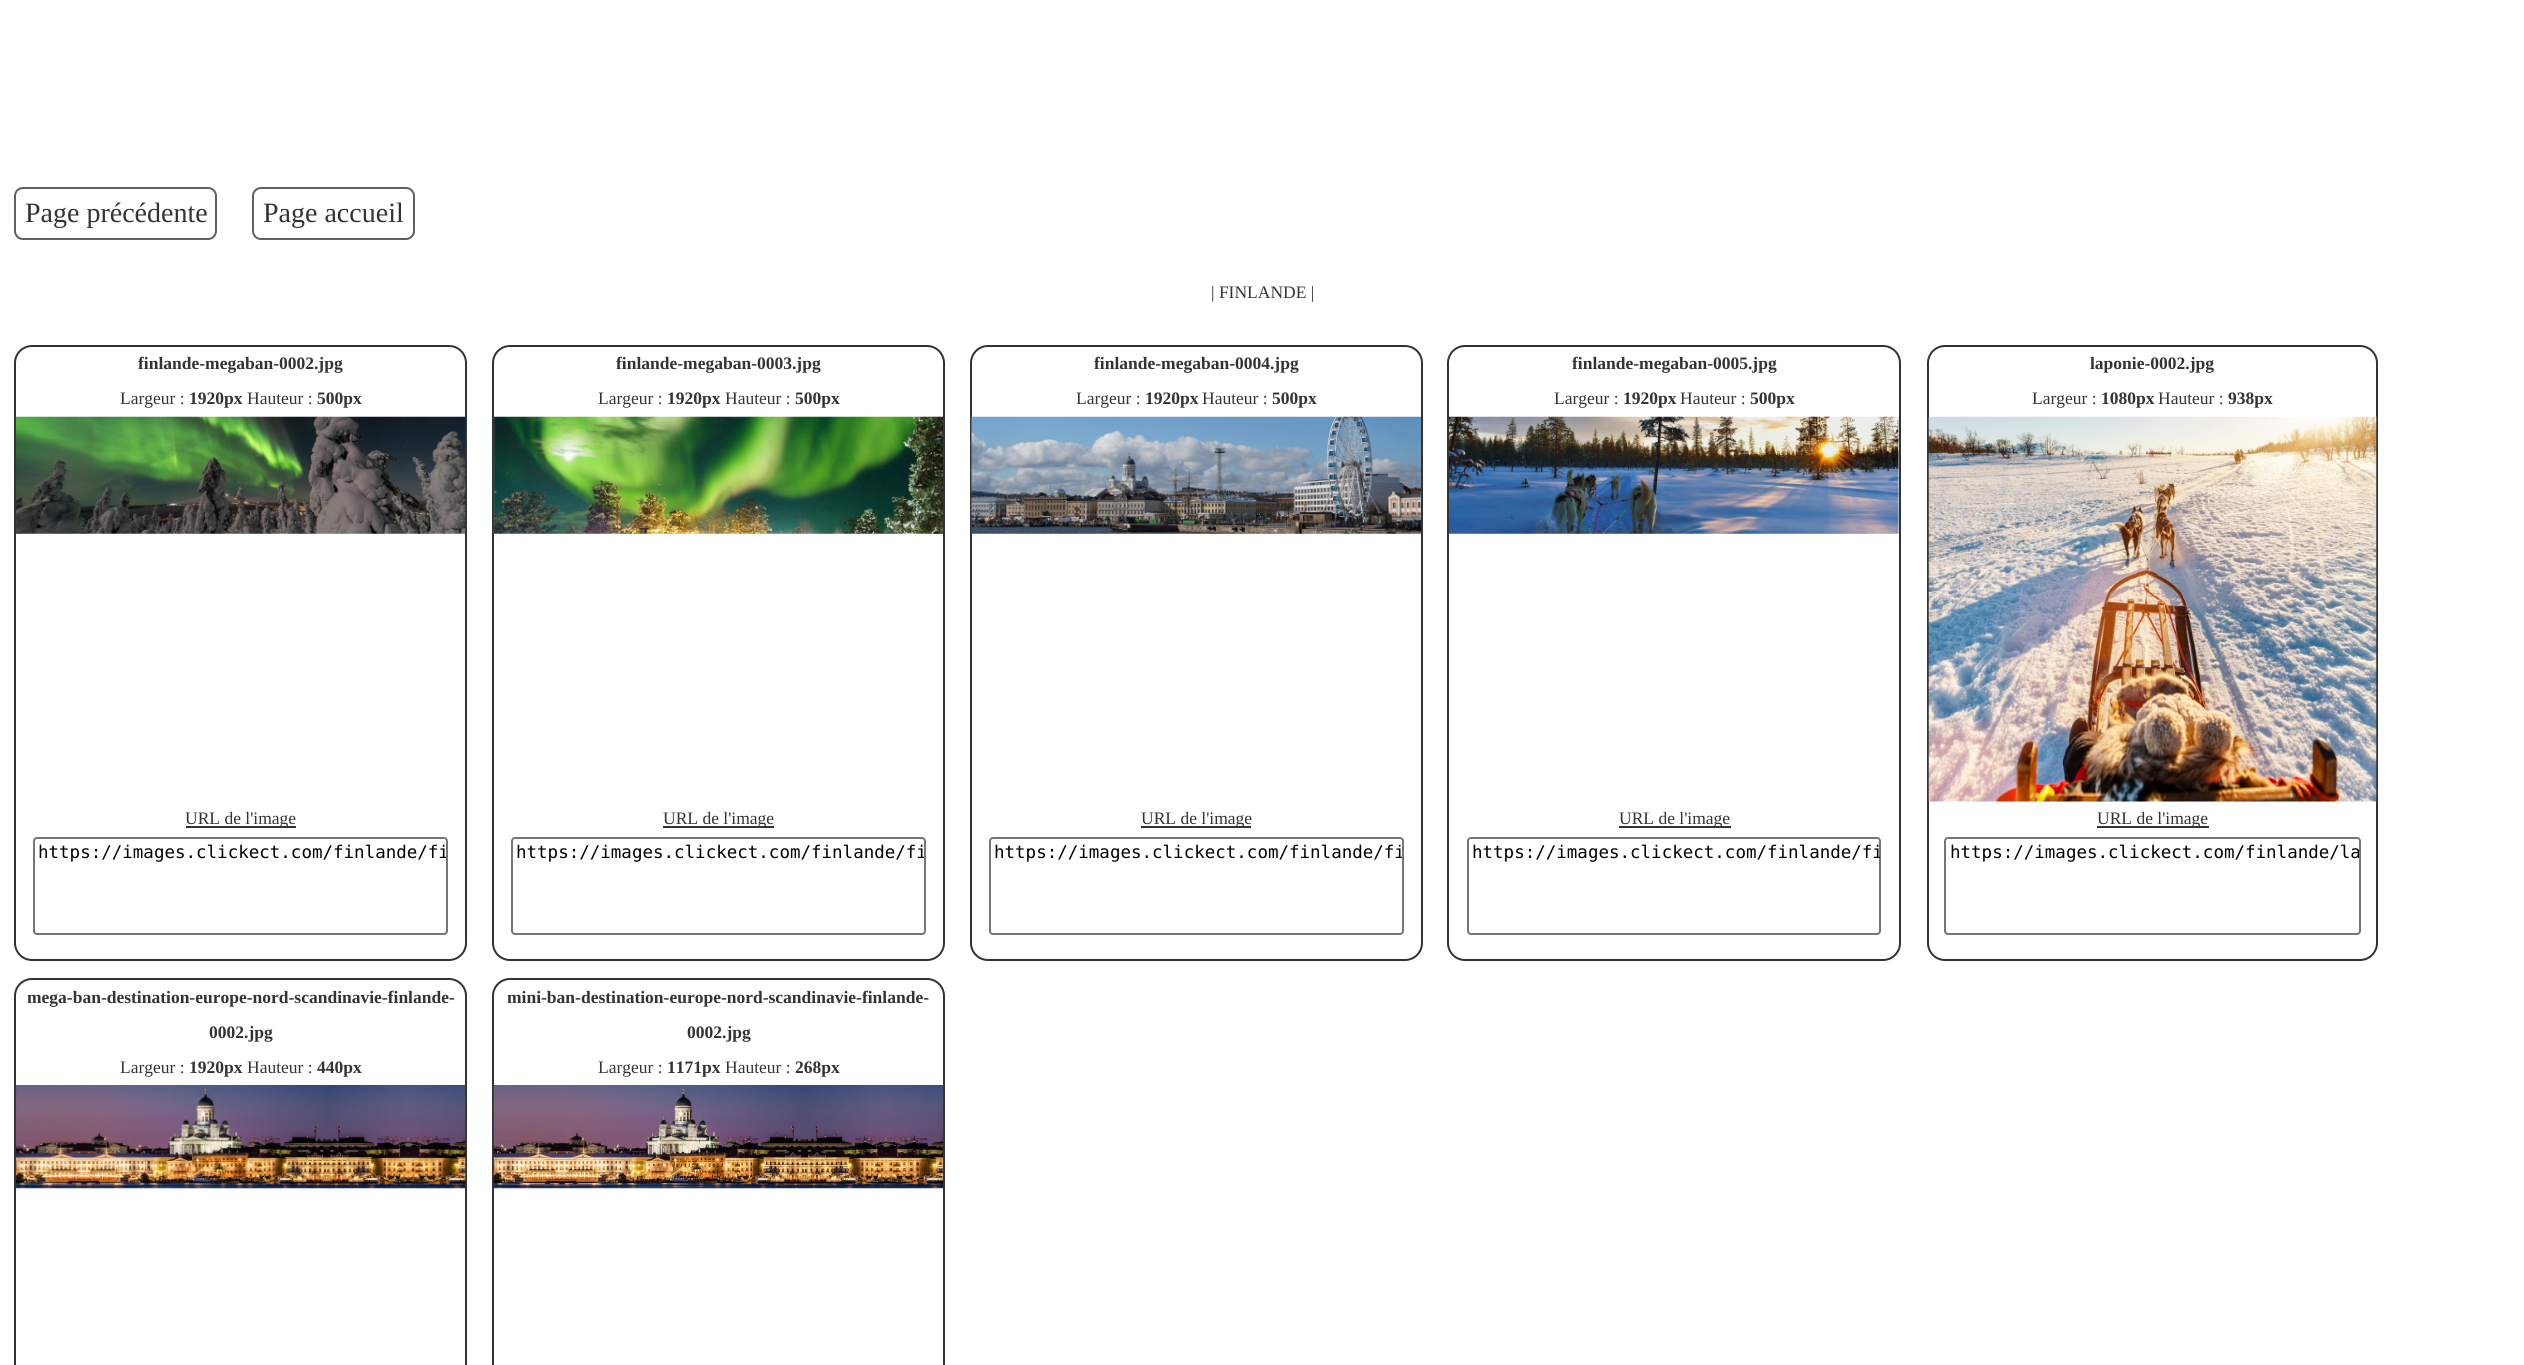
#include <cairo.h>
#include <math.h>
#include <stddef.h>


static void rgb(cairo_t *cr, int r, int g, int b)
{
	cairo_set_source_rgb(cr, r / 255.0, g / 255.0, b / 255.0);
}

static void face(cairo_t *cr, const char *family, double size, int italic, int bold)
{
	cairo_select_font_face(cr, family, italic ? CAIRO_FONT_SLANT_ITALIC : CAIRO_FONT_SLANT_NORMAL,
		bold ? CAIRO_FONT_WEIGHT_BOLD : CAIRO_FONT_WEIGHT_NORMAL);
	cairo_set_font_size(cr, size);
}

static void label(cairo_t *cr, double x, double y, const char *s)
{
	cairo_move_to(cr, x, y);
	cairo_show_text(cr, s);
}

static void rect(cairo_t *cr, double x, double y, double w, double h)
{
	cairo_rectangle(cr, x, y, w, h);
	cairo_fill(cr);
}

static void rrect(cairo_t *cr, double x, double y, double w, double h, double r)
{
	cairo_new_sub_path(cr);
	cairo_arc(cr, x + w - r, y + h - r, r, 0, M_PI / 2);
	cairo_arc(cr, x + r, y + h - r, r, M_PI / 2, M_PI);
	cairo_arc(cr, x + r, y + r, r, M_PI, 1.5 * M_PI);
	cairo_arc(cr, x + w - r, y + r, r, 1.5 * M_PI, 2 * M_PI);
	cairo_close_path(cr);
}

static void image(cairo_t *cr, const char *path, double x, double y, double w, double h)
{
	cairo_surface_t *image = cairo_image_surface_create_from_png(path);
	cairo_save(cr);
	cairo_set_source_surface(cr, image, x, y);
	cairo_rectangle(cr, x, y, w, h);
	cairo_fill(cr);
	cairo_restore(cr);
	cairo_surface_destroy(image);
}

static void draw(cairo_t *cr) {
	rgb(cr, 255, 255, 255);
	cairo_paint(cr);
	rrect(cr, 15, 188, 201, 51, 8);
	rgb(cr, 96, 96, 96);
	cairo_stroke(cr);
	face(cr, "Liberation Serif", 28, 0, 0);
	rgb(cr, 51, 51, 51);
	label(cr, 25, 222, "Page précédente");
	rrect(cr, 253, 188, 161, 51, 8);
	rgb(cr, 96, 96, 96);
	cairo_stroke(cr);
	rgb(cr, 51, 51, 51);
	label(cr, 263, 222, "Page accueil");
	face(cr, "Liberation Serif", 17.5, 0, 0);
	label(cr, 1211, 298, "| FINLANDE |");
	rrect(cr, 15, 346, 451, 614, 17);
	cairo_stroke(cr);
	face(cr, "Liberation Serif", 17.5, 0, 1);
	label(cr, 138, 369, "finlande-megaban-0002.jpg");
	face(cr, "Liberation Serif", 17.5, 0, 0);
	label(cr, 120, 404, "Largeur :");
	face(cr, "Liberation Serif", 17.5, 0, 1);
	label(cr, 189, 404, "1920px");
	face(cr, "Liberation Serif", 17.5, 0, 0);
	label(cr, 247, 404, "Hauteur :");
	face(cr, "Liberation Serif", 17.5, 0, 1);
	label(cr, 317, 404, "500px");
	image(cr, "image0.png", 15, 416, 451, 118);
	rect(cr, 186, 826, 110, 2);
	face(cr, "Liberation Serif", 17.5, 0, 0);
	label(cr, 185, 824, "URL de l'image");
	rrect(cr, 34, 838, 413, 96, 3);
	rgb(cr, 118, 118, 118);
	cairo_stroke(cr);
	cairo_save(cr);
	cairo_rectangle(cr, 35, 838, 411, 95);
	cairo_clip(cr);
	face(cr, "DejaVu Sans Mono", 17.5, 0, 0);
	rgb(cr, 0, 0, 0);
	label(cr, 38, 858, "https://images.clickect.com/finlande/fi");
	cairo_restore(cr);
	rrect(cr, 493, 346, 451, 614, 17);
	rgb(cr, 51, 51, 51);
	cairo_stroke(cr);
	face(cr, "Liberation Serif", 17.5, 0, 1);
	label(cr, 616, 369, "finlande-megaban-0003.jpg");
	face(cr, "Liberation Serif", 17.5, 0, 0);
	label(cr, 598, 404, "Largeur :");
	face(cr, "Liberation Serif", 17.5, 0, 1);
	label(cr, 667, 404, "1920px");
	face(cr, "Liberation Serif", 17.5, 0, 0);
	label(cr, 725, 404, "Hauteur :");
	face(cr, "Liberation Serif", 17.5, 0, 1);
	label(cr, 795, 404, "500px");
	image(cr, "image1.png", 493, 416, 450, 118);
	rect(cr, 663, 826, 111, 2);
	face(cr, "Liberation Serif", 17.5, 0, 0);
	label(cr, 663, 824, "URL de l'image");
	rrect(cr, 512, 838, 413, 96, 3);
	rgb(cr, 118, 118, 118);
	cairo_stroke(cr);
	cairo_save(cr);
	cairo_rectangle(cr, 513, 838, 411, 95);
	cairo_clip(cr);
	face(cr, "DejaVu Sans Mono", 17.5, 0, 0);
	rgb(cr, 0, 0, 0);
	label(cr, 516, 858, "https://images.clickect.com/finlande/fi");
	cairo_restore(cr);
	rrect(cr, 971, 346, 451, 614, 17);
	rgb(cr, 51, 51, 51);
	cairo_stroke(cr);
	face(cr, "Liberation Serif", 17.5, 0, 1);
	label(cr, 1094, 369, "finlande-megaban-0004.jpg");
	face(cr, "Liberation Serif", 17.5, 0, 0);
	label(cr, 1076, 404, "Largeur :");
	face(cr, "Liberation Serif", 17.5, 0, 1);
	label(cr, 1145, 404, "1920px");
	face(cr, "Liberation Serif", 17.5, 0, 0);
	label(cr, 1202, 404, "Hauteur :");
	face(cr, "Liberation Serif", 17.5, 0, 1);
	label(cr, 1272, 404, "500px");
	image(cr, "image2.png", 971, 416, 450, 118);
	rect(cr, 1141, 826, 110, 2);
	face(cr, "Liberation Serif", 17.5, 0, 0);
	label(cr, 1141, 824, "URL de l'image");
	rrect(cr, 990, 838, 413, 96, 3);
	rgb(cr, 118, 118, 118);
	cairo_stroke(cr);
	cairo_save(cr);
	cairo_rectangle(cr, 991, 838, 411, 95);
	cairo_clip(cr);
	face(cr, "DejaVu Sans Mono", 17.5, 0, 0);
	rgb(cr, 0, 0, 0);
	label(cr, 994, 858, "https://images.clickect.com/finlande/fi");
	cairo_restore(cr);
	rrect(cr, 1448, 346, 452, 614, 17);
	rgb(cr, 51, 51, 51);
	cairo_stroke(cr);
	face(cr, "Liberation Serif", 17.5, 0, 1);
	label(cr, 1572, 369, "finlande-megaban-0005.jpg");
	face(cr, "Liberation Serif", 17.5, 0, 0);
	label(cr, 1554, 404, "Largeur :");
	face(cr, "Liberation Serif", 17.5, 0, 1);
	label(cr, 1623, 404, "1920px");
	face(cr, "Liberation Serif", 17.5, 0, 0);
	label(cr, 1680, 404, "Hauteur :");
	face(cr, "Liberation Serif", 17.5, 0, 1);
	label(cr, 1750, 404, "500px");
	image(cr, "image3.png", 1449, 416, 450, 118);
	rect(cr, 1619, 826, 112, 2);
	face(cr, "Liberation Serif", 17.5, 0, 0);
	label(cr, 1619, 824, "URL de l'image");
	rrect(cr, 1468, 838, 412, 96, 3);
	rgb(cr, 118, 118, 118);
	cairo_stroke(cr);
	cairo_save(cr);
	cairo_rectangle(cr, 1468, 838, 412, 95);
	cairo_clip(cr);
	face(cr, "DejaVu Sans Mono", 17.5, 0, 0);
	rgb(cr, 0, 0, 0);
	label(cr, 1472, 858, "https://images.clickect.com/finlande/fi");
	cairo_restore(cr);
	rrect(cr, 1928, 346, 449, 614, 17);
	rgb(cr, 51, 51, 51);
	cairo_stroke(cr);
	face(cr, "Liberation Serif", 17.5, 0, 1);
	label(cr, 2090, 369, "laponie-0002.jpg");
	face(cr, "Liberation Serif", 17.5, 0, 0);
	label(cr, 2032, 404, "Largeur :");
	face(cr, "Liberation Serif", 17.5, 0, 1);
	label(cr, 2101, 404, "1080px");
	face(cr, "Liberation Serif", 17.5, 0, 0);
	label(cr, 2158, 404, "Hauteur :");
	face(cr, "Liberation Serif", 17.5, 0, 1);
	label(cr, 2228, 404, "938px");
	image(cr, "image4.png", 1928, 416, 449, 386);
	rect(cr, 2097, 826, 112, 2);
	face(cr, "Liberation Serif", 17.5, 0, 0);
	label(cr, 2097, 824, "URL de l'image");
	rrect(cr, 1945, 838, 415, 96, 3);
	rgb(cr, 118, 118, 118);
	cairo_stroke(cr);
	cairo_save(cr);
	cairo_rectangle(cr, 1946, 838, 413, 95);
	cairo_clip(cr);
	face(cr, "DejaVu Sans Mono", 17.5, 0, 0);
	rgb(cr, 0, 0, 0);
	label(cr, 1950, 858, "https://images.clickect.com/finlande/la");
	cairo_restore(cr);
	rrect(cr, 15, 979, 451, 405, 17);
	rgb(cr, 51, 51, 51);
	cairo_stroke(cr);
	face(cr, "Liberation Serif", 17.5, 0, 1);
	label(cr, 27, 1003, "mega-ban-destination-europe-nord-scandinavie-finlande-");
	label(cr, 209, 1038, "0002.jpg");
	face(cr, "Liberation Serif", 17.5, 0, 0);
	label(cr, 120, 1073, "Largeur :");
	face(cr, "Liberation Serif", 17.5, 0, 1);
	label(cr, 189, 1073, "1920px");
	face(cr, "Liberation Serif", 17.5, 0, 0);
	label(cr, 247, 1073, "Hauteur :");
	face(cr, "Liberation Serif", 17.5, 0, 1);
	label(cr, 317, 1073, "440px");
	image(cr, "image5.png", 15, 1085, 451, 104);
	rrect(cr, 493, 979, 451, 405, 17);
	cairo_stroke(cr);
	label(cr, 507, 1003, "mini-ban-destination-europe-nord-scandinavie-finlande-");
	label(cr, 687, 1038, "0002.jpg");
	face(cr, "Liberation Serif", 17.5, 0, 0);
	label(cr, 598, 1073, "Largeur :");
	face(cr, "Liberation Serif", 17.5, 0, 1);
	label(cr, 667, 1073, "1171px");
	face(cr, "Liberation Serif", 17.5, 0, 0);
	label(cr, 725, 1073, "Hauteur :");
	face(cr, "Liberation Serif", 17.5, 0, 1);
	label(cr, 795, 1073, "268px");
	image(cr, "image6.png", 493, 1085, 451, 104);
}

int main(void) {
	cairo_surface_t *surface = cairo_image_surface_create(CAIRO_FORMAT_RGB24, 2524, 1365);
	cairo_t *cr = cairo_create(surface);
	cairo_font_options_t *options = cairo_font_options_create();
	cairo_font_options_set_hint_metrics(options, CAIRO_HINT_METRICS_OFF);
	cairo_font_options_set_hint_style(options, CAIRO_HINT_STYLE_NONE);
	cairo_set_font_options(cr, options);
	cairo_set_miter_limit(cr, 4);
	draw(cr);
	cairo_surface_write_to_png(surface, "render.png");
	cairo_font_options_destroy(options);
	cairo_destroy(cr);
	cairo_surface_destroy(surface);
	return 0;
}
